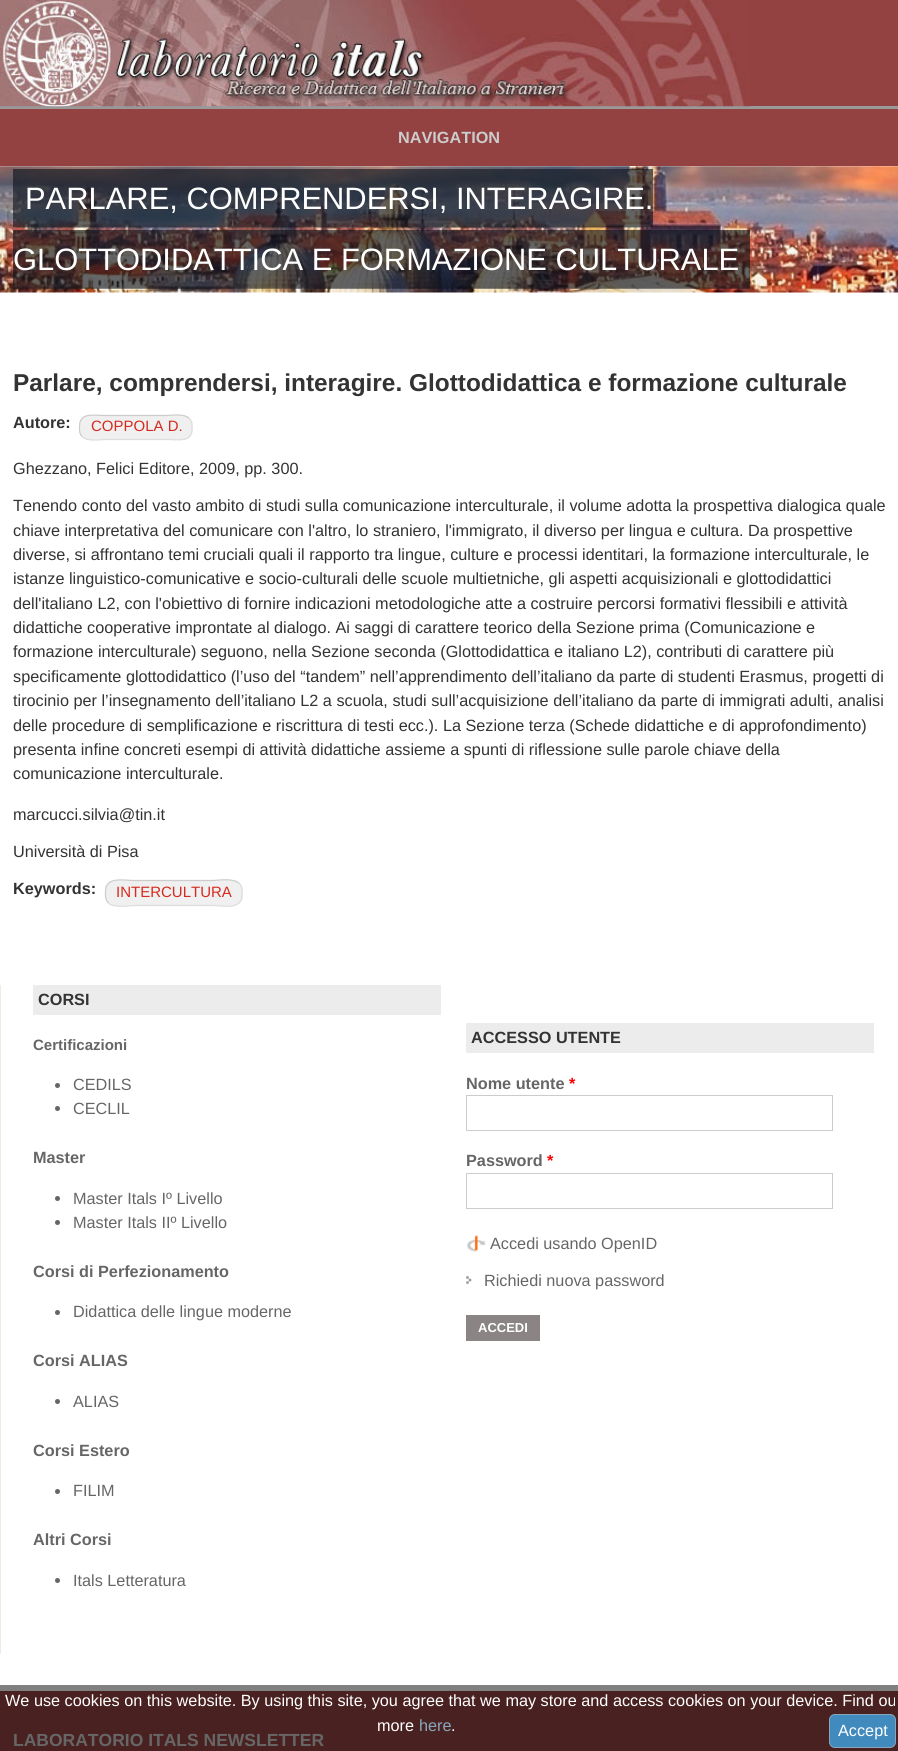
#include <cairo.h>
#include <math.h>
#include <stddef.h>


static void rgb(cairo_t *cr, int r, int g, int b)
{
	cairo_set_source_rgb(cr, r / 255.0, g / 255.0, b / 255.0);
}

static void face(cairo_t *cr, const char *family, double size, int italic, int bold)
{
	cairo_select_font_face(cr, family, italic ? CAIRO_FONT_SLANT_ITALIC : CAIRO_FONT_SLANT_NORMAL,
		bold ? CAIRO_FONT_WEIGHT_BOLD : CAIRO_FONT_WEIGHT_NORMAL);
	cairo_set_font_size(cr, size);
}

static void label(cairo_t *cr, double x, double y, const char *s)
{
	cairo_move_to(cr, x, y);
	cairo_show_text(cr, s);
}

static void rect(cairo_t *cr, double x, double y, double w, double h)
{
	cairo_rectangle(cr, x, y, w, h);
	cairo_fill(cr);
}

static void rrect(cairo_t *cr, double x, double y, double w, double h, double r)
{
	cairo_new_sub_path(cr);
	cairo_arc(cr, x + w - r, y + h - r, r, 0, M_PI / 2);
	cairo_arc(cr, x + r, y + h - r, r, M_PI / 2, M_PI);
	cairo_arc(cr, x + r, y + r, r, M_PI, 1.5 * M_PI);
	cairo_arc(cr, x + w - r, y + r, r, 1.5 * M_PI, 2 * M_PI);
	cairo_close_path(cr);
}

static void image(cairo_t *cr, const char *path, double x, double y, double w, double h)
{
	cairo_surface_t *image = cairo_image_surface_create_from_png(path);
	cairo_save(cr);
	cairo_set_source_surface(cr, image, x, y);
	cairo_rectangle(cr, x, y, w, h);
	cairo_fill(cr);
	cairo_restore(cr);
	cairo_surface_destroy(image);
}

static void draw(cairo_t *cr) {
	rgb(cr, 255, 255, 255);
	cairo_paint(cr);
	rgb(cr, 128, 128, 128);
	rect(cr, 0, 1685, 898, 6);
	rgb(cr, 148, 65, 66);
	rect(cr, 750, 0, 148, 106);
	rgb(cr, 153, 153, 153);
	rect(cr, 0, 106, 898, 3);
	image(cr, "image0.png", 0, 0, 750, 107);
	rgb(cr, 148, 65, 66);
	rect(cr, 0, 109, 898, 57);
	face(cr, "Liberation Sans", 16.25, 0, 1);
	rgb(cr, 204, 204, 204);
	label(cr, 398, 143, "NAVIGATION");
	image(cr, "image1.png", 0, 166, 898, 127);
	image(cr, "image2.png", 13, 169, 737, 120);
	face(cr, "Liberation Sans", 30.9, 0, 0);
	rgb(cr, 255, 255, 255);
	label(cr, 25, 209, "PARLARE, COMPRENDERSI, INTERAGIRE.");
	label(cr, 13, 270, "GLOTTODIDATTICA E FORMAZIONE CULTURALE");
	face(cr, "Liberation Sans", 24.4, 0, 1);
	rgb(cr, 51, 51, 51);
	label(cr, 13, 391, "Parlare, comprendersi, interagire. Glottodidattica e formazione culturale");
	face(cr, "Liberation Sans", 16.25, 0, 1);
	label(cr, 13, 428, "Autore:");
	rgb(cr, 240, 240, 240);
	rrect(cr, 79, 415, 114, 25, 10);
	cairo_fill(cr);
	cairo_new_path(cr);
	cairo_move_to(cr, 189, 418.5);
	cairo_curve_to(cr, 192, 421, 192, 424.5, 192, 428.5);
	cairo_curve_to(cr, 192, 443, 177.5, 439.5, 167, 439.5);
	cairo_line_to(cr, 104.5, 439.5);
	cairo_curve_to(cr, 99.5, 439.5, 87.5, 442, 82, 436.5);
	rgb(cr, 221, 221, 221);
	cairo_set_line_width(cr, 1.2);
	cairo_stroke(cr);
	cairo_new_path(cr);
	cairo_move_to(cr, 82, 436.5);
	cairo_curve_to(cr, 79.5, 434, 79.5, 430.5, 79.5, 426.5);
	cairo_curve_to(cr, 79.5, 412, 93.5, 415.5, 104.5, 415.5);
	cairo_line_to(cr, 167, 415.5);
	cairo_curve_to(cr, 171.5, 415.5, 184, 413, 189, 418.5);
	rgb(cr, 204, 204, 204);
	cairo_stroke(cr);
	face(cr, "Liberation Sans", 15, 0, 0);
	rgb(cr, 212, 43, 30);
	label(cr, 91, 431, "COPPOLA D.");
	face(cr, "Liberation Sans", 16.25, 0, 0);
	rgb(cr, 51, 51, 51);
	label(cr, 13, 474, "Ghezzano, Felici Editore, 2009, pp. 300.");
	label(cr, 13, 511, "Tenendo conto del vasto ambito di studi sulla comunicazione interculturale, il volume adotta la prospettiva dialogica quale");
	label(cr, 13, 536, "chiave interpretativa del comunicare con l'altro, lo straniero, l'immigrato, il diverso per lingua e cultura. Da prospettive");
	label(cr, 13, 560, "diverse, si affrontano temi cruciali quali il rapporto tra lingue, culture e processi identitari, la formazione interculturale, le");
	label(cr, 13, 584, "istanze linguistico-comunicative e socio-culturali delle scuole multietniche, gli aspetti acquisizionali e glottodidattici");
	label(cr, 13, 609, "dell'italiano L2, con l'obiettivo di fornire indicazioni metodologiche atte a costruire percorsi formativi flessibili e attività");
	label(cr, 13, 633, "didattiche cooperative improntate al dialogo. Ai saggi di carattere teorico della Sezione prima (Comunicazione e");
	label(cr, 13, 657, "formazione interculturale) seguono, nella Sezione seconda (Glottodidattica e italiano L2), contributi di carattere più");
	label(cr, 13, 682, "specificamente glottodidattico (l’uso del “tandem” nell’apprendimento dell’italiano da parte di studenti Erasmus, progetti di");
	label(cr, 13, 706, "tirocinio per l’insegnamento dell’italiano L2 a scuola, studi sull’acquisizione dell’italiano da parte di immigrati adulti, analisi");
	label(cr, 13, 731, "delle procedure di semplificazione e riscrittura di testi ecc.). La Sezione terza (Schede didattiche e di approfondimento)");
	label(cr, 13, 755, "presenta infine concreti esempi di attività didattiche assieme a spunti di riflessione sulle parole chiave della");
	label(cr, 13, 779, "comunicazione interculturale.");
	label(cr, 13, 820, "marcucci.silvia@tin.it");
	label(cr, 13, 857, "Università di Pisa");
	face(cr, "Liberation Sans", 16.25, 0, 1);
	label(cr, 13, 894, "Keywords:");
	rgb(cr, 240, 240, 240);
	rrect(cr, 105, 880, 138, 26, 10);
	cairo_fill(cr);
	cairo_new_path(cr);
	cairo_move_to(cr, 239, 883.5);
	cairo_curve_to(cr, 242.5, 886.5, 242, 890.5, 242, 894.5);
	cairo_curve_to(cr, 242, 910.5, 223.5, 905.5, 213, 905.5);
	cairo_line_to(cr, 134.5, 905.5);
	cairo_curve_to(cr, 131, 905.5, 114, 908.5, 108.5, 903);
	rgb(cr, 221, 221, 221);
	cairo_stroke(cr);
	cairo_new_path(cr);
	cairo_move_to(cr, 108.5, 903);
	cairo_curve_to(cr, 105, 899.5, 105.5, 895.5, 105.5, 891.5);
	cairo_curve_to(cr, 105.5, 876, 124, 880.5, 134.5, 880.5);
	cairo_line_to(cr, 213, 880.5);
	cairo_curve_to(cr, 216.5, 880.5, 233.5, 877.5, 239, 883.5);
	rgb(cr, 204, 204, 204);
	cairo_stroke(cr);
	face(cr, "Liberation Sans", 15, 0, 0);
	rgb(cr, 212, 43, 30);
	label(cr, 116, 897, "INTERCULTURA");
	rgb(cr, 239, 236, 228);
	rect(cr, 0, 985, 1, 669);
	rgb(cr, 236, 236, 236);
	rect(cr, 33, 985, 408, 30);
	face(cr, "Liberation Sans", 16.25, 0, 1);
	rgb(cr, 51, 51, 51);
	label(cr, 38, 1005, "CORSI");
	face(cr, "Liberation Sans", 15, 0, 1);
	rgb(cr, 102, 102, 102);
	label(cr, 33, 1050, "Certificazioni");
	cairo_new_path(cr);
	cairo_arc(cr, 57.5, 1085.5, 2.5, 0, 2 * M_PI);
	cairo_fill(cr);
	face(cr, "Liberation Sans", 16.25, 0, 0);
	label(cr, 73, 1090, "CEDILS");
	cairo_new_path(cr);
	cairo_arc(cr, 57.5, 1108.5, 2.5, 0, 2 * M_PI);
	cairo_fill(cr);
	label(cr, 73, 1114, "CECLIL");
	face(cr, "Liberation Sans", 16.25, 0, 1);
	label(cr, 33, 1163, "Master");
	cairo_new_path(cr);
	cairo_arc(cr, 57.5, 1198.5, 2.5, 0, 2 * M_PI);
	cairo_fill(cr);
	face(cr, "Liberation Sans", 16.25, 0, 0);
	label(cr, 73, 1204, "Master Itals Iº Livello");
	cairo_new_path(cr);
	cairo_arc(cr, 57.5, 1222.5, 2.5, 0, 2 * M_PI);
	cairo_fill(cr);
	label(cr, 73, 1228, "Master Itals IIº Livello");
	face(cr, "Liberation Sans", 16.25, 0, 1);
	label(cr, 33, 1277, "Corsi di Perfezionamento");
	cairo_new_path(cr);
	cairo_arc(cr, 57.5, 1312.5, 2.5, 0, 2 * M_PI);
	cairo_fill(cr);
	face(cr, "Liberation Sans", 16.25, 0, 0);
	label(cr, 73, 1317, "Didattica delle lingue moderne");
	face(cr, "Liberation Sans", 16.25, 0, 1);
	label(cr, 33, 1366, "Corsi ALIAS");
	cairo_new_path(cr);
	cairo_arc(cr, 57.5, 1401.5, 2.5, 0, 2 * M_PI);
	cairo_fill(cr);
	face(cr, "Liberation Sans", 16.25, 0, 0);
	label(cr, 73, 1407, "ALIAS");
	face(cr, "Liberation Sans", 16.25, 0, 1);
	label(cr, 33, 1456, "Corsi Estero");
	cairo_new_path(cr);
	cairo_arc(cr, 57.5, 1491.5, 2.5, 0, 2 * M_PI);
	cairo_fill(cr);
	face(cr, "Liberation Sans", 16.25, 0, 0);
	label(cr, 73, 1496, "FILIM");
	face(cr, "Liberation Sans", 16.25, 0, 1);
	label(cr, 33, 1545, "Altri Corsi");
	cairo_new_path(cr);
	cairo_arc(cr, 57.5, 1580.5, 2.5, 0, 2 * M_PI);
	cairo_fill(cr);
	face(cr, "Liberation Sans", 16.25, 0, 0);
	label(cr, 73, 1586, "Itals Letteratura");
	rgb(cr, 236, 236, 236);
	rect(cr, 466, 1023, 408, 30);
	face(cr, "Liberation Sans", 16.25, 0, 1);
	rgb(cr, 51, 51, 51);
	label(cr, 471, 1043, "ACCESSO UTENTE");
	rgb(cr, 102, 102, 102);
	label(cr, 466, 1089, "Nome utente");
	rgb(cr, 255, 0, 0);
	label(cr, 569, 1089, "*");
	cairo_rectangle(cr, 466.5, 1095.5, 366, 35);
	rgb(cr, 204, 204, 204);
	cairo_set_line_width(cr, 1);
	cairo_stroke(cr);
	rgb(cr, 102, 102, 102);
	label(cr, 466, 1166, "Password");
	rgb(cr, 255, 0, 0);
	label(cr, 547, 1166, "*");
	cairo_rectangle(cr, 466.5, 1173.5, 366, 35);
	rgb(cr, 204, 204, 204);
	cairo_stroke(cr);
	image(cr, "image3.png", 467, 1235, 19, 17);
	face(cr, "Liberation Sans", 16.25, 0, 0);
	rgb(cr, 102, 102, 102);
	label(cr, 490, 1249, "Accedi usando OpenID");
	image(cr, "image4.png", 466, 1276, 6, 8);
	label(cr, 484, 1286, "Richiedi nuova password");
	rgb(cr, 138, 132, 132);
	rect(cr, 466, 1315, 74, 26);
	face(cr, "Liberation Sans", 13, 0, 1);
	rgb(cr, 255, 255, 255);
	label(cr, 478, 1332, "ACCEDI");
	rgb(cr, 74, 33, 33);
	rect(cr, 0, 1691, 898, 60);
	face(cr, "Liberation Sans", 17.5, 0, 1);
	rgb(cr, 102, 102, 102);
	label(cr, 13, 1746, "LABORATORIO ITALS NEWSLETTER");
	face(cr, "Liberation Sans", 16.25, 0, 0);
	rgb(cr, 255, 255, 255);
	label(cr, 5, 1706, "We use cookies on this website. By using this site, you agree that we may store and access cookies on your device. Find ou");
	label(cr, 377, 1731, "more");
	rgb(cr, 135, 167, 189);
	label(cr, 419, 1731, "here");
	rgb(cr, 255, 255, 255);
	label(cr, 451, 1731, ".");
	rgb(cr, 65, 138, 189);
	rrect(cr, 829.5, 1714.5, 66, 33, 5.5);
	cairo_fill_preserve(cr);
	rgb(cr, 135, 167, 189);
	cairo_stroke(cr);
	rgb(cr, 255, 255, 255);
	label(cr, 838, 1736, "Accept");
}

int main(void) {
	cairo_surface_t *surface = cairo_image_surface_create(CAIRO_FORMAT_RGB24, 898, 1751);
	cairo_t *cr = cairo_create(surface);
	cairo_font_options_t *options = cairo_font_options_create();
	cairo_font_options_set_hint_metrics(options, CAIRO_HINT_METRICS_OFF);
	cairo_font_options_set_hint_style(options, CAIRO_HINT_STYLE_NONE);
	cairo_set_font_options(cr, options);
	cairo_set_miter_limit(cr, 4);
	draw(cr);
	cairo_surface_write_to_png(surface, "render.png");
	cairo_font_options_destroy(options);
	cairo_destroy(cr);
	cairo_surface_destroy(surface);
	return 0;
}
